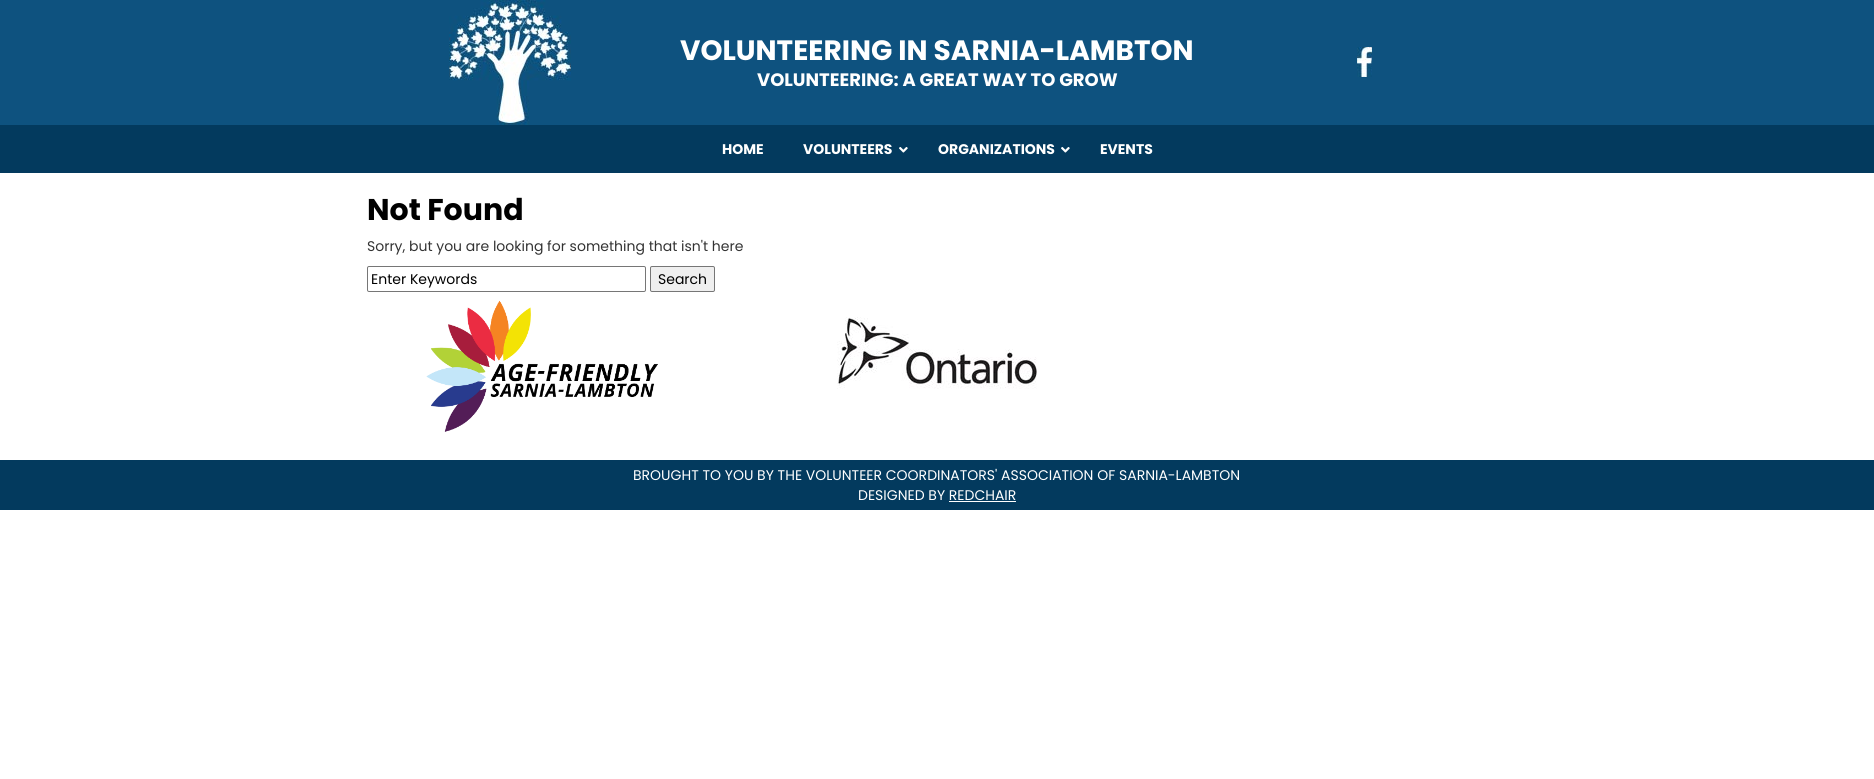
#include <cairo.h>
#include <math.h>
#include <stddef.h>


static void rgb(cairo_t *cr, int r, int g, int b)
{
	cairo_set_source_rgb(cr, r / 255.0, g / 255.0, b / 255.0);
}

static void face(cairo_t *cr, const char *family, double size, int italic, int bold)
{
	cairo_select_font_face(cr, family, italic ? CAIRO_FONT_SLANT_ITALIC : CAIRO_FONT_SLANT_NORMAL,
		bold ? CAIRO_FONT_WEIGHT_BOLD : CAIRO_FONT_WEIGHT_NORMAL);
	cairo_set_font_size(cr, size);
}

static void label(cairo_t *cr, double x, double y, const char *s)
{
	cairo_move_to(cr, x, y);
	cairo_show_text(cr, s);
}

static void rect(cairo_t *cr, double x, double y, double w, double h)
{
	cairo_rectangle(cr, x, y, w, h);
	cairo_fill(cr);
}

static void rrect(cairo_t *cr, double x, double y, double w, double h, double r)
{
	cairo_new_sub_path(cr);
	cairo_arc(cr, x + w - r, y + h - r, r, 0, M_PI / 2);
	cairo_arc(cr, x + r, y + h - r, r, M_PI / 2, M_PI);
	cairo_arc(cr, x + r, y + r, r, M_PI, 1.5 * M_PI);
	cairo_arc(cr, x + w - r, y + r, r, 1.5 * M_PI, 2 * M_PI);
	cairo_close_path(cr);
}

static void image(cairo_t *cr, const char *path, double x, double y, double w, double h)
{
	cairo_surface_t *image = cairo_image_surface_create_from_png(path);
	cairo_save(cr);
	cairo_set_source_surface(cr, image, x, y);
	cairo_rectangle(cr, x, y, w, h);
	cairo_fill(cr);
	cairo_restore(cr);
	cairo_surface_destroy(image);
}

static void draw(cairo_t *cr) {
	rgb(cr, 255, 255, 255);
	cairo_paint(cr);
	rgb(cr, 14, 82, 127);
	rect(cr, 0, 0, 1874, 125);
	image(cr, "image0.png", 449, 0, 122, 125);
	face(cr, "Poppins", 28, 0, 1);
	rgb(cr, 255, 255, 255);
	label(cr, 680, 60, "VOLUNTEERING IN SARNIA-LAMBTON");
	face(cr, "Poppins", 18, 0, 1);
	label(cr, 757, 86, "VOLUNTEERING: A GREAT WAY TO GROW");
	image(cr, "image1.png", 1357, 47, 15, 30);
	rgb(cr, 3, 58, 94);
	rect(cr, 0, 125, 1874, 48);
	face(cr, "Poppins", 14, 0, 1);
	rgb(cr, 255, 255, 255);
	label(cr, 722, 154, "HOME");
	label(cr, 803, 154, "VOLUNTEERS");
	image(cr, "image2.png", 899, 147, 9, 6);
	label(cr, 938, 154, "ORGANIZATIONS");
	image(cr, "image2.png", 1061, 147, 9, 6);
	label(cr, 1100, 154, "EVENTS");
	face(cr, "Poppins", 30, 0, 1);
	rgb(cr, 0, 0, 0);
	label(cr, 367, 220, "Not Found");
	face(cr, "Poppins", 14, 0, 0);
	rgb(cr, 51, 51, 51);
	label(cr, 367, 251, "Sorry, but you are looking for something that isn't here");
	rrect(cr, 367.5, 266.5, 278, 25, 1.5);
	rgb(cr, 118, 118, 118);
	cairo_set_line_width(cr, 1);
	cairo_stroke(cr);
	rgb(cr, 0, 0, 0);
	label(cr, 371, 284, "Enter Keywords");
	rgb(cr, 239, 239, 239);
	rrect(cr, 650.5, 266.5, 64, 25, 1.5);
	cairo_fill_preserve(cr);
	rgb(cr, 118, 118, 118);
	cairo_stroke(cr);
	rgb(cr, 0, 0, 0);
	label(cr, 658, 284, "Search");
	image(cr, "image3.png", 426, 300, 232, 132);
	image(cr, "image4.png", 837, 317, 200, 72);
	rgb(cr, 3, 58, 94);
	rect(cr, 0, 460, 1874, 50);
	rgb(cr, 255, 255, 255);
	label(cr, 633, 480, "BROUGHT TO YOU BY THE VOLUNTEER COORDINATORS' ASSOCIATION OF SARNIA-LAMBTON");
	label(cr, 858, 500, "DESIGNED BY REDCHAIR");
	rect(cr, 949, 501, 67, 1);
}

int main(void) {
	cairo_surface_t *surface = cairo_image_surface_create(CAIRO_FORMAT_RGB24, 1874, 779);
	cairo_t *cr = cairo_create(surface);
	cairo_font_options_t *options = cairo_font_options_create();
	cairo_font_options_set_hint_metrics(options, CAIRO_HINT_METRICS_OFF);
	cairo_font_options_set_hint_style(options, CAIRO_HINT_STYLE_NONE);
	cairo_set_font_options(cr, options);
	cairo_set_miter_limit(cr, 4);
	draw(cr);
	cairo_surface_write_to_png(surface, "render.png");
	cairo_font_options_destroy(options);
	cairo_destroy(cr);
	cairo_surface_destroy(surface);
	return 0;
}
